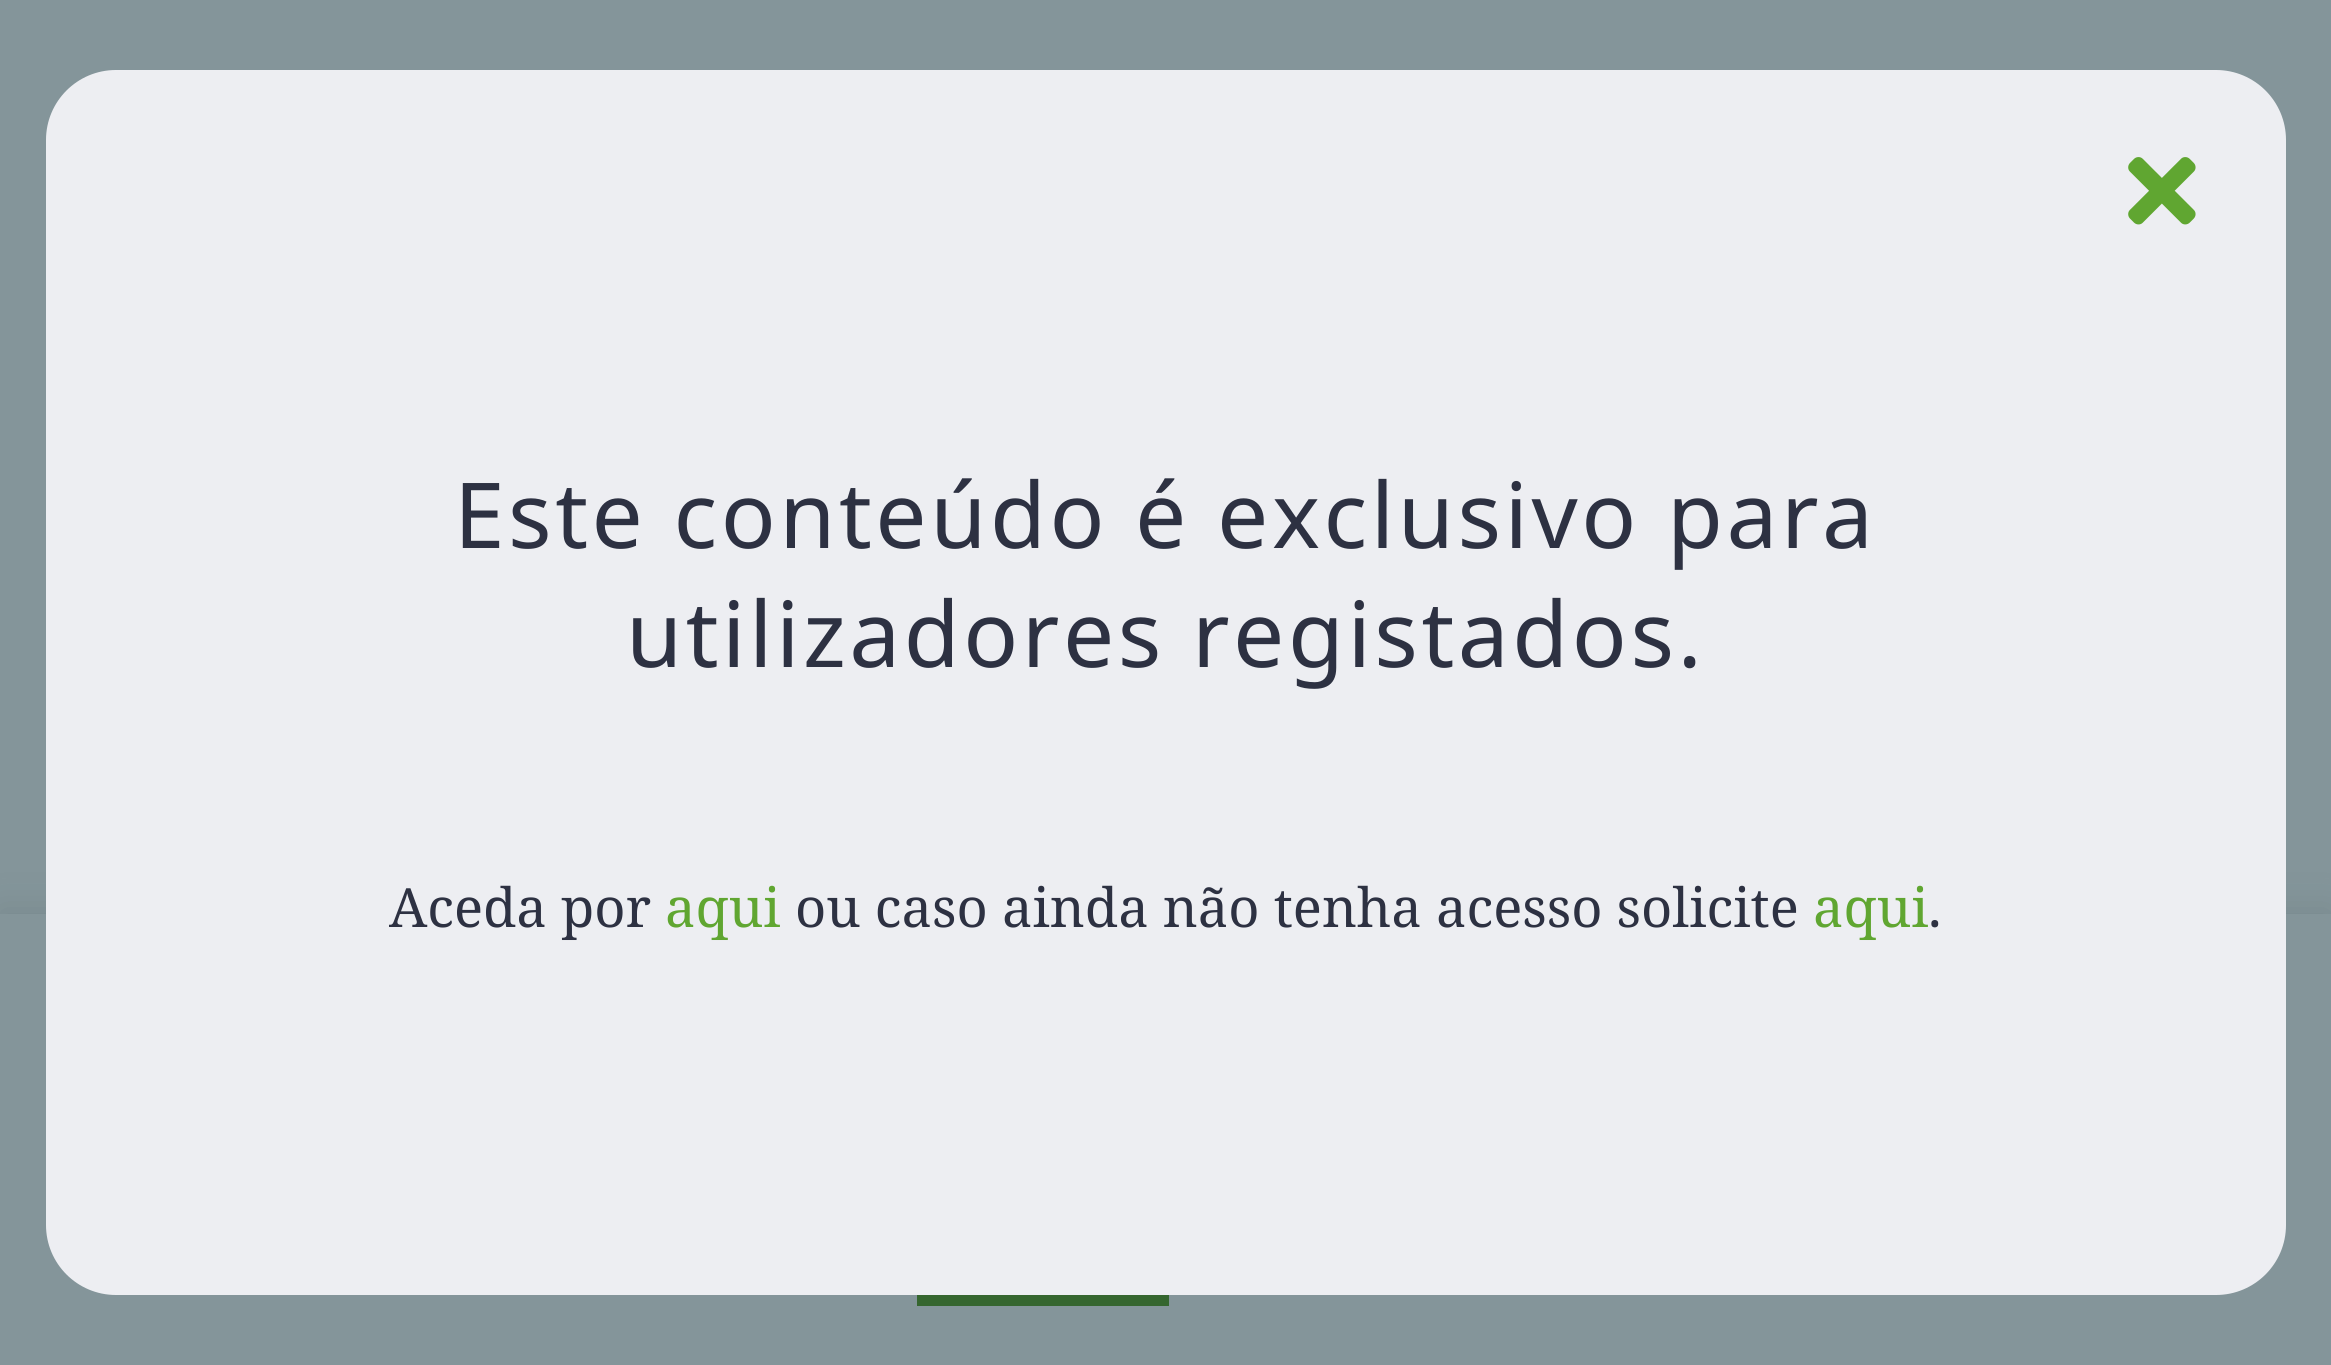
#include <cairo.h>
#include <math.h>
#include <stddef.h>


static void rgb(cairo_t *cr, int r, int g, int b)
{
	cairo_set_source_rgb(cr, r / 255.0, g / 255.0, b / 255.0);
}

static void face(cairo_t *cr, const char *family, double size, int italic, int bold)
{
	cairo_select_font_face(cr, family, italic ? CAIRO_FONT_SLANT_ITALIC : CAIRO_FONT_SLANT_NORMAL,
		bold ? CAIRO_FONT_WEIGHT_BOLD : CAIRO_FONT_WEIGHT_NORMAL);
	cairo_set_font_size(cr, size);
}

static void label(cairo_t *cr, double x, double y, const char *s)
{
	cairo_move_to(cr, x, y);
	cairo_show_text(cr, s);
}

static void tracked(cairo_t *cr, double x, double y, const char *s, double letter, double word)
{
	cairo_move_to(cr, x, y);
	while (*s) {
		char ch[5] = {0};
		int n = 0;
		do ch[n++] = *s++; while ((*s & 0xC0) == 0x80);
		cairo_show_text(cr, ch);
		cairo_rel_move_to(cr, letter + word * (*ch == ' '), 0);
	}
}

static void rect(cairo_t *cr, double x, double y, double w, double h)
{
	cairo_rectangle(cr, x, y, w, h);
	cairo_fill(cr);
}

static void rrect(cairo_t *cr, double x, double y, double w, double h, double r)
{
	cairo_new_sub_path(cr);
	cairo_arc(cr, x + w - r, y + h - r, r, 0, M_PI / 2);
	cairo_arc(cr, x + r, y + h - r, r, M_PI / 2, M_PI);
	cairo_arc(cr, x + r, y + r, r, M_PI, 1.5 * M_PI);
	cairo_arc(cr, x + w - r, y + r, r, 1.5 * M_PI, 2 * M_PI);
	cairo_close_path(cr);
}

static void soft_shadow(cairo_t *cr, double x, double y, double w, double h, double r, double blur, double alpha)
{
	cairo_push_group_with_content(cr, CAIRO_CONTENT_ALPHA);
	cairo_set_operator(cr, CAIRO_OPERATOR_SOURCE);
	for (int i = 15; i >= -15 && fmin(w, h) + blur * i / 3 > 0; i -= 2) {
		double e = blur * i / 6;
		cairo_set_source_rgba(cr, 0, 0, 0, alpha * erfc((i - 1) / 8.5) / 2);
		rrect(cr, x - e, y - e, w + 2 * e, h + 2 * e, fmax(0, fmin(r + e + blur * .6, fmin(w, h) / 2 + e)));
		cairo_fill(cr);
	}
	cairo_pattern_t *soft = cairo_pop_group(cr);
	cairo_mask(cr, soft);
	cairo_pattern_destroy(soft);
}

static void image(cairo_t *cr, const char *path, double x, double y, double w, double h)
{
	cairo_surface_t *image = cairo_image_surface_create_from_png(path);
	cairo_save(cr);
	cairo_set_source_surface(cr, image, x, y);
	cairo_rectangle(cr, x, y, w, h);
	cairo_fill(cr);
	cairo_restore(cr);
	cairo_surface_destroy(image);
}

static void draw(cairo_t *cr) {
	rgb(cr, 132, 149, 154);
	cairo_paint(cr);
	rgb(cr, 91, 107, 112);
	soft_shadow(cr, 0, 910, 2331, 452, 0, 17.5, 0.3);
	rgb(cr, 132, 149, 154);
	rect(cr, 0, 914, 2331, 451);
	rgb(cr, 237, 238, 242);
	rrect(cr, 46, 70, 2240, 1225, 70);
	cairo_fill(cr);
	image(cr, "image0.png", 2128, 157, 68, 68);
	face(cr, "Noto Sans", 91, 0, 0);
	rgb(cr, 45, 49, 66);
	tracked(cr, 454, 548, "Este conteúdo é exclusivo para", 3.5, 0);
	tracked(cr, 626, 667, "utilizadores registados.", 3.5, 0);
	face(cr, "Noto Serif", 54.25, 0, 0);
	label(cr, 389, 927, "Aceda por");
	rgb(cr, 96, 166, 49);
	label(cr, 665, 927, "aqui");
	rgb(cr, 45, 49, 66);
	label(cr, 795, 927, "ou caso ainda não tenha acesso solicite");
	rgb(cr, 96, 166, 49);
	label(cr, 1813, 927, "aqui");
	rgb(cr, 45, 49, 66);
	label(cr, 1928, 927, ".");
	rgb(cr, 53, 102, 47);
	rect(cr, 917, 1295, 252, 11);
}

int main(void) {
	cairo_surface_t *surface = cairo_image_surface_create(CAIRO_FORMAT_RGB24, 2331, 1365);
	cairo_t *cr = cairo_create(surface);
	cairo_font_options_t *options = cairo_font_options_create();
	cairo_font_options_set_hint_metrics(options, CAIRO_HINT_METRICS_OFF);
	cairo_font_options_set_hint_style(options, CAIRO_HINT_STYLE_NONE);
	cairo_set_font_options(cr, options);
	cairo_set_miter_limit(cr, 4);
	draw(cr);
	cairo_surface_write_to_png(surface, "render.png");
	cairo_font_options_destroy(options);
	cairo_destroy(cr);
	cairo_surface_destroy(surface);
	return 0;
}
